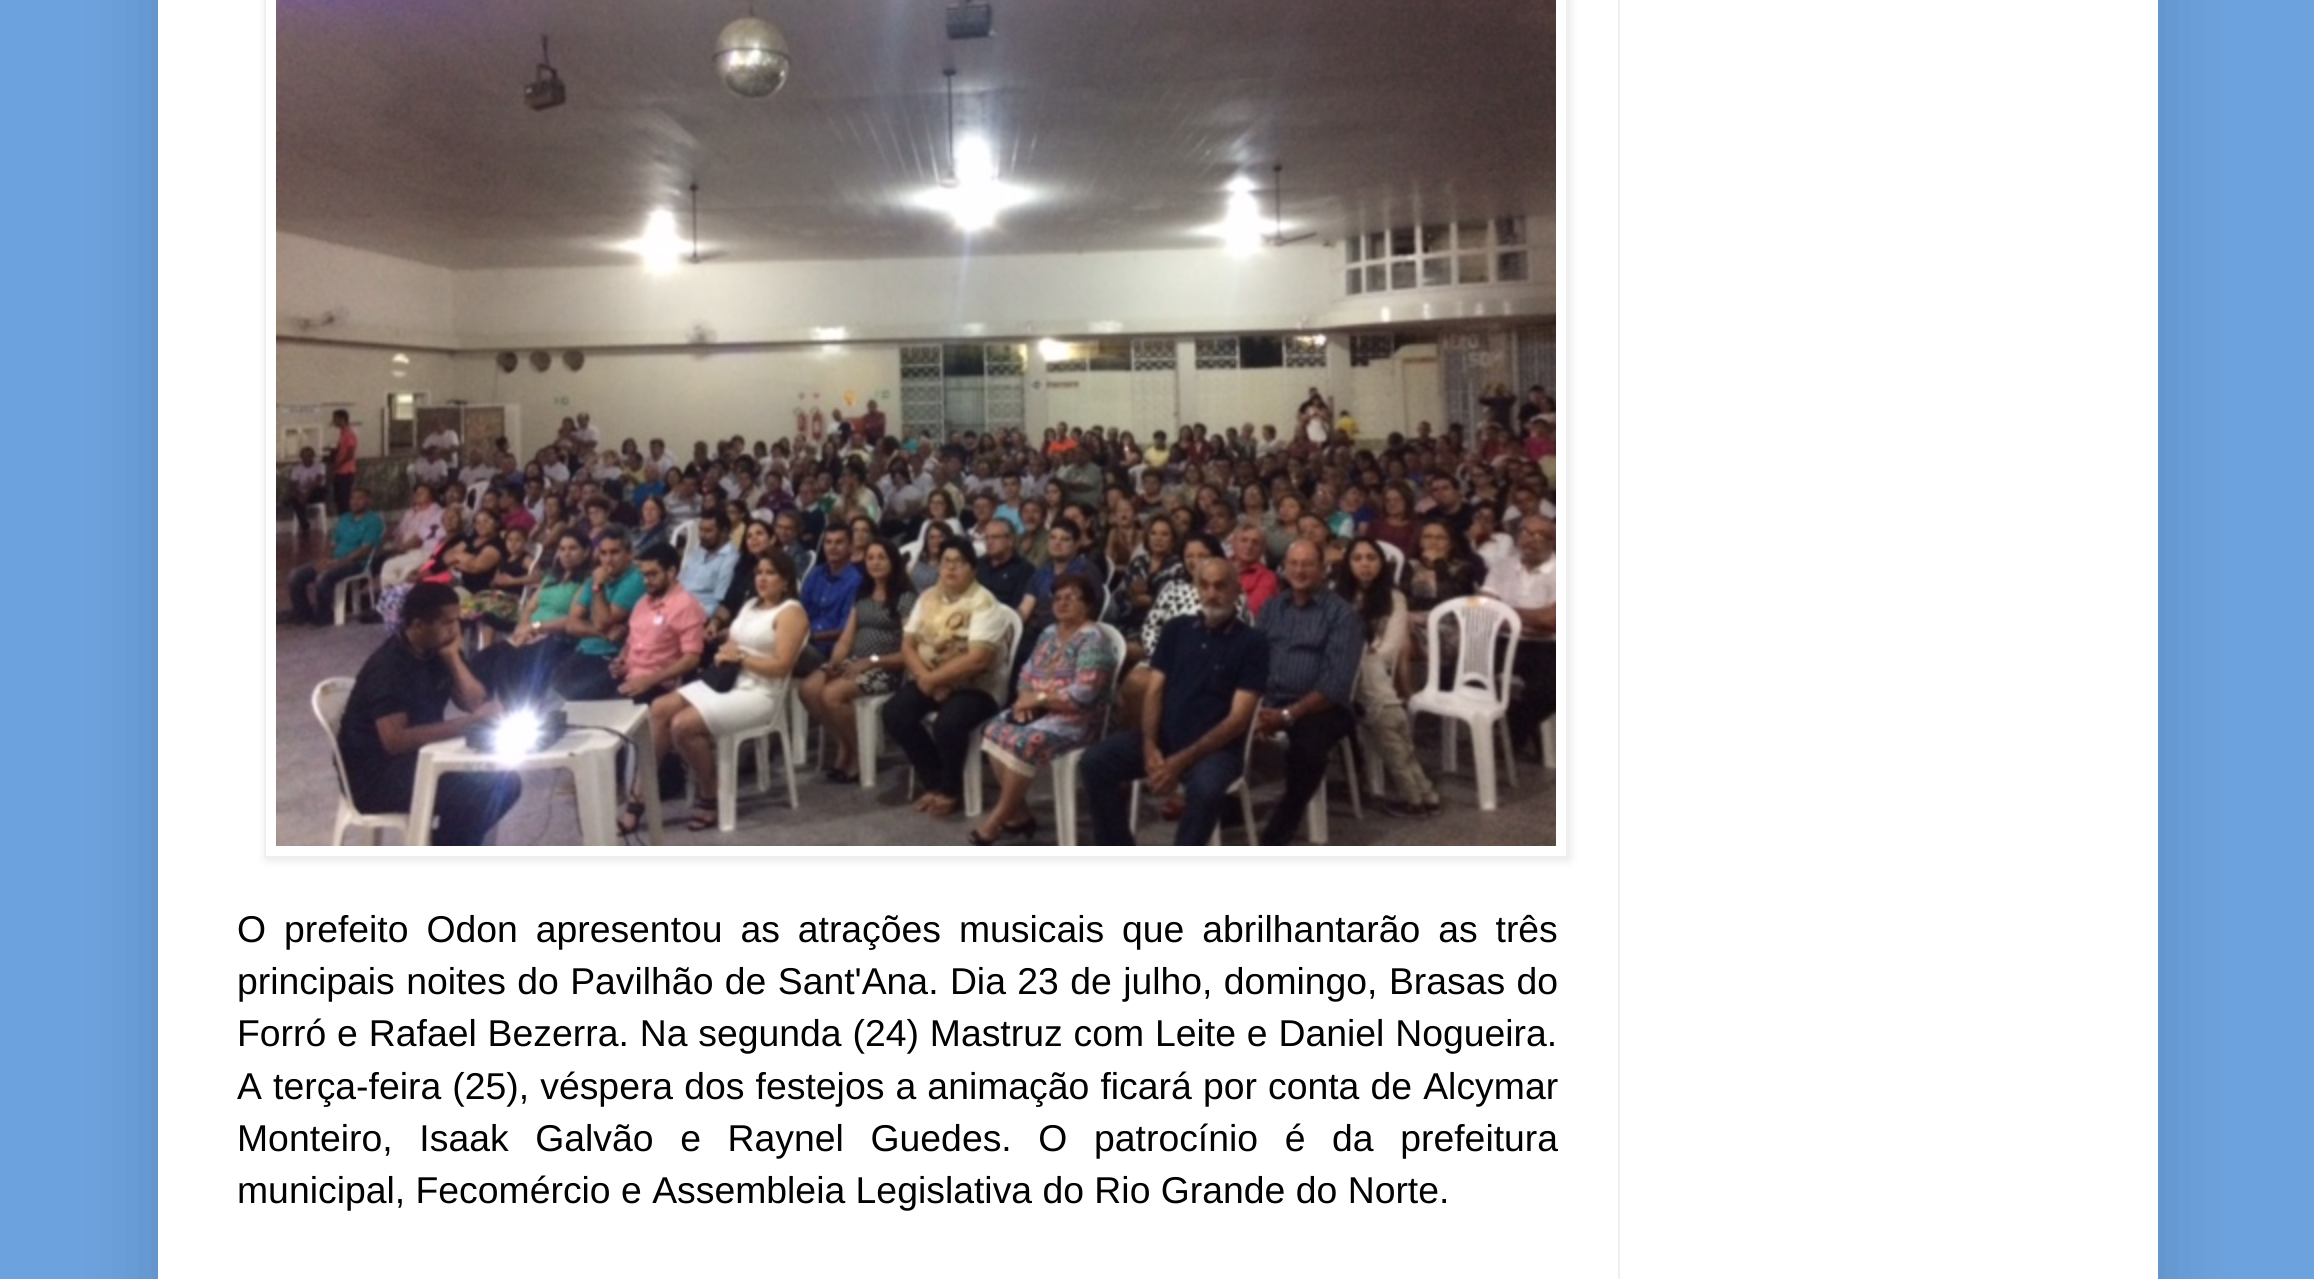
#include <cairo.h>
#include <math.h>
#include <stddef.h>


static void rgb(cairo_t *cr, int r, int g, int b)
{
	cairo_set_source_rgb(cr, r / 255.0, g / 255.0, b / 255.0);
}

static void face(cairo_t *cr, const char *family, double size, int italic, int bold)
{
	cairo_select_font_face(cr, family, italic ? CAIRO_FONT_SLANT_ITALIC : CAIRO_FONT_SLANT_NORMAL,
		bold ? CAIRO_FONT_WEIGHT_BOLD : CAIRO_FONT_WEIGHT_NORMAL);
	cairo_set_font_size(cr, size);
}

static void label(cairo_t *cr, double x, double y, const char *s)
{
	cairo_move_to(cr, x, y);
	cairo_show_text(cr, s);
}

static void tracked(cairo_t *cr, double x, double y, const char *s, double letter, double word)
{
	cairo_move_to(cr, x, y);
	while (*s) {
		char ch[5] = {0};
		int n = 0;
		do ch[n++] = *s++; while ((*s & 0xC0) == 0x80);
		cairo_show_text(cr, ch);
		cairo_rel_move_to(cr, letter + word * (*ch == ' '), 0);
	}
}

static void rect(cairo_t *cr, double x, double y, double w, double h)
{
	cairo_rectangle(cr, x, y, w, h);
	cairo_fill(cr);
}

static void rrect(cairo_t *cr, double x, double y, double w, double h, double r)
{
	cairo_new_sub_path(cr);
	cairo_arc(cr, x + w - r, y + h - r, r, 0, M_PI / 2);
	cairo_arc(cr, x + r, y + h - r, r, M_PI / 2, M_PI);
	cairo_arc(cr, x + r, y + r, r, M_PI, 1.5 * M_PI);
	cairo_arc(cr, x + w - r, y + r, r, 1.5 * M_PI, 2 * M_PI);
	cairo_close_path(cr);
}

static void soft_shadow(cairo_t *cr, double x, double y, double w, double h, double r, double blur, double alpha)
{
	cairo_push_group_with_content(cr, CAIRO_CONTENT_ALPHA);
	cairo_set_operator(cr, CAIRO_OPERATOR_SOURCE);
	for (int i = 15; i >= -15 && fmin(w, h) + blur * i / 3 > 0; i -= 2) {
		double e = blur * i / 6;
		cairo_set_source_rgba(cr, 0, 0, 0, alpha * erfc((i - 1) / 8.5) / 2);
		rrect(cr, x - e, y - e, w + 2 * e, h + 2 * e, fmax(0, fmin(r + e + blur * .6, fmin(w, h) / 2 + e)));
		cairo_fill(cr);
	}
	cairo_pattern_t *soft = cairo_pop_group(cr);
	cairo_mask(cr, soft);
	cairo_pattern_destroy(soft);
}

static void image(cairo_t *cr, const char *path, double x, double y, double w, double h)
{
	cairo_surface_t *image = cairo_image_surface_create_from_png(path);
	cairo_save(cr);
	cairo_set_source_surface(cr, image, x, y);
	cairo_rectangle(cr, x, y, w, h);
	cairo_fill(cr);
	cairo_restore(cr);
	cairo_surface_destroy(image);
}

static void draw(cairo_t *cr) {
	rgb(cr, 108, 162, 222);
	cairo_paint(cr);
	rgb(cr, 0, 0, 0);
	soft_shadow(cr, 158, -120, 2000, 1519, 0, 40, 0.15);
	rgb(cr, 255, 255, 255);
	rect(cr, 158, 0, 2000, 1279);
	cairo_save(cr);
	cairo_set_fill_rule(cr, CAIRO_FILL_RULE_EVEN_ODD);
	cairo_new_path(cr);
	cairo_move_to(cr, 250, 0);
	cairo_line_to(cr, 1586, 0);
	cairo_line_to(cr, 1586, 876);
	cairo_line_to(cr, 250, 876);
	cairo_close_path(cr);
	cairo_move_to(cr, 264, -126);
	cairo_line_to(cr, 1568, -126);
	cairo_line_to(cr, 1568, 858);
	cairo_line_to(cr, 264, 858);
	cairo_close_path(cr);
	cairo_clip(cr);
	rgb(cr, 0, 0, 0);
	soft_shadow(cr, 266, -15, 1304, 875, 0, 5, 0.1);
	cairo_restore(cr);
	cairo_rectangle(cr, 265, -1, 1302, 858);
	rgb(cr, 239, 239, 239);
	cairo_stroke(cr);
	image(cr, "image0.png", 276, 0, 1280, 846);
	face(cr, "Liberation Sans", 37.35, 0, 0);
	rgb(cr, 2, 2, 2);
	tracked(cr, 237, 942, "O prefeito Odon apresentou as atrações musicais que abrilhantarão as três", 0, 7.5);
	tracked(cr, 237, 994, "principais noites do Pavilhão de Sant'Ana. Dia 23 de julho, domingo, Brasas do", 0, 1);
	tracked(cr, 237, 1046, "Forró e Rafael Bezerra. Na segunda (24) Mastruz com Leite e Daniel Nogueira.", 0, 0.5);
	tracked(cr, 237, 1099, "A terça-feira (25), véspera dos festejos a animação ficará por conta de Alcymar", 0, 0.75);
	tracked(cr, 237, 1151, "Monteiro, Isaak Galvão e Raynel Guedes. O patrocínio é da prefeitura", 0, 16.25);
	label(cr, 237, 1203, "municipal, Fecomércio e Assembleia Legislativa do Rio Grande do Norte.");
	rgb(cr, 239, 239, 239);
	rect(cr, 1618, 0, 2, 1279);
}

int main(void) {
	cairo_surface_t *surface = cairo_image_surface_create(CAIRO_FORMAT_RGB24, 2314, 1279);
	cairo_t *cr = cairo_create(surface);
	cairo_font_options_t *options = cairo_font_options_create();
	cairo_font_options_set_hint_metrics(options, CAIRO_HINT_METRICS_OFF);
	cairo_font_options_set_hint_style(options, CAIRO_HINT_STYLE_NONE);
	cairo_set_font_options(cr, options);
	cairo_set_miter_limit(cr, 4);
	draw(cr);
	cairo_surface_write_to_png(surface, "render.png");
	cairo_font_options_destroy(options);
	cairo_destroy(cr);
	cairo_surface_destroy(surface);
	return 0;
}
